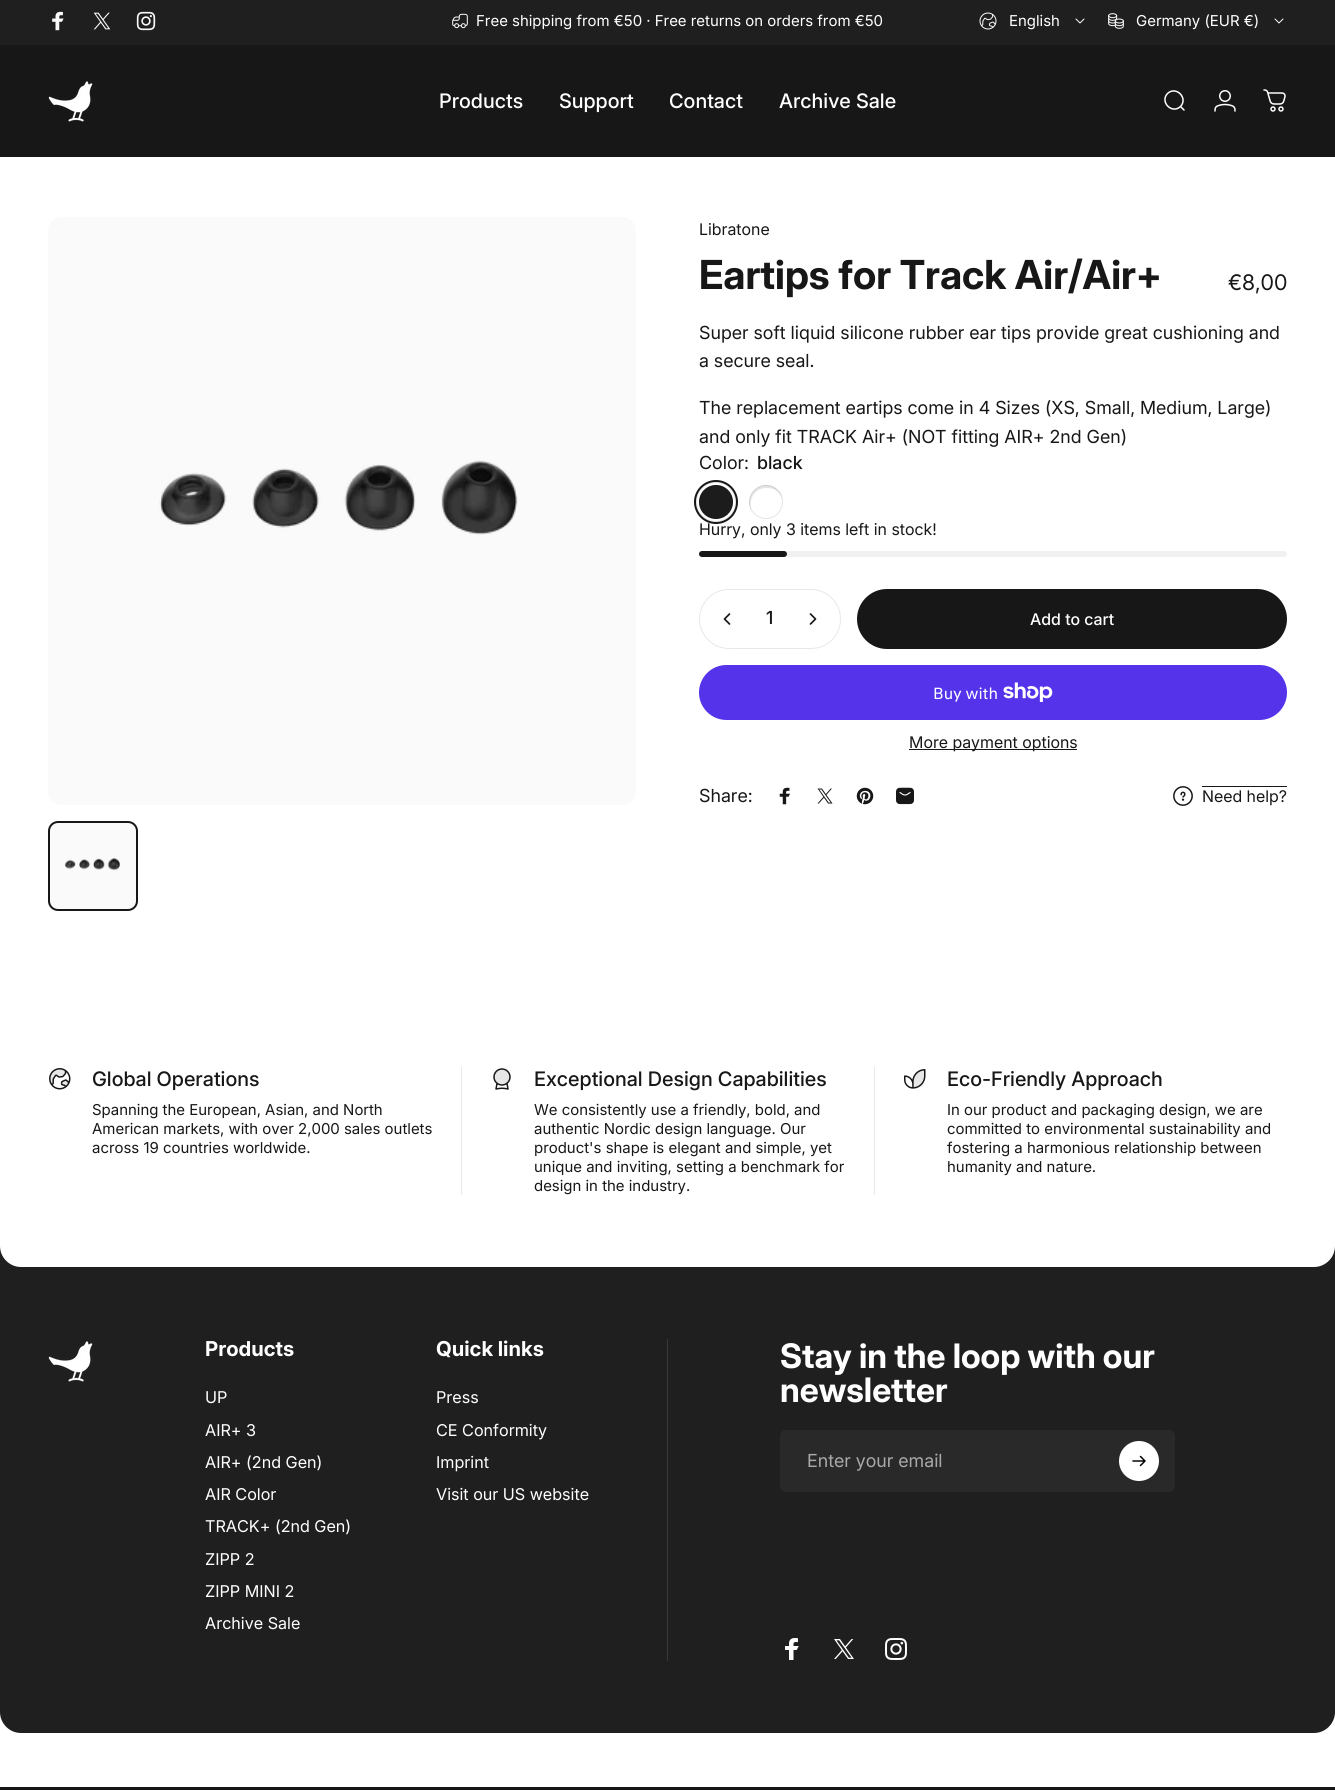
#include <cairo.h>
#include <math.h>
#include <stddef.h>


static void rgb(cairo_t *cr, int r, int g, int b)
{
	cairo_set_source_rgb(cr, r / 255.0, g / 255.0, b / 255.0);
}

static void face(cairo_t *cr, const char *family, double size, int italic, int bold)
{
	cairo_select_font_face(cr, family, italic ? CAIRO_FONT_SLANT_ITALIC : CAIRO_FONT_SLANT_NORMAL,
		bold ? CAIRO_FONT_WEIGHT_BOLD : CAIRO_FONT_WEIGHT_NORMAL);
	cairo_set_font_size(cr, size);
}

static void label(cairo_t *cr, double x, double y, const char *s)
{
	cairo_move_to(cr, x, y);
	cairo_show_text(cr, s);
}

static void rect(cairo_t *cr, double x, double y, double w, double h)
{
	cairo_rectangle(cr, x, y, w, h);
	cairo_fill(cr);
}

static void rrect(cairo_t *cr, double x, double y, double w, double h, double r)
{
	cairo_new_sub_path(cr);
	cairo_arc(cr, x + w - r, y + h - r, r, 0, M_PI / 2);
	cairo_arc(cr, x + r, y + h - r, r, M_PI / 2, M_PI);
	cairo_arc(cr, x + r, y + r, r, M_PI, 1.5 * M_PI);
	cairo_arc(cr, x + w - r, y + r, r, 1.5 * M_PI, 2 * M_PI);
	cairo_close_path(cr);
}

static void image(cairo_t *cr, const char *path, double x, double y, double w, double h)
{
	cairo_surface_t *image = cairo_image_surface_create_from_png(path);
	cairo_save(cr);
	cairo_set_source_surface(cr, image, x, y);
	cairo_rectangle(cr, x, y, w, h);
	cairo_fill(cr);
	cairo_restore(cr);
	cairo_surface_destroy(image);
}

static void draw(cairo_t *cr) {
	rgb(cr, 255, 255, 255);
	cairo_paint(cr);
	rgb(cr, 31, 31, 31);
	rect(cr, 0, 0, 1335, 45);
	image(cr, "image0.png", 52, 11, 12, 20);
	image(cr, "image1.png", 93, 12, 18, 18);
	image(cr, "image2.png", 136, 11, 20, 20);
	image(cr, "image3.png", 452, 13, 16, 16);
	face(cr, "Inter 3", 15, 0, 0);
	rgb(cr, 255, 255, 255);
	label(cr, 476, 26, "Free shipping from €50 · Free returns on orders from €50");
	image(cr, "image4.png", 979, 12, 18, 18);
	label(cr, 1009, 26, "English");
	cairo_new_path(cr);
	cairo_move_to(cr, 1076, 19);
	cairo_line_to(cr, 1080, 23);
	cairo_line_to(cr, 1084, 19);
	rgb(cr, 250, 250, 250);
	cairo_set_line_width(cr, 1);
	cairo_set_line_cap(cr, CAIRO_LINE_CAP_ROUND);
	cairo_set_line_join(cr, CAIRO_LINE_JOIN_ROUND);
	cairo_stroke(cr);
	image(cr, "image5.png", 1108, 13, 16, 16);
	rgb(cr, 255, 255, 255);
	label(cr, 1136, 26, "Germany (EUR €)");
	cairo_new_path(cr);
	cairo_move_to(cr, 1275, 19);
	cairo_line_to(cr, 1279, 23);
	cairo_line_to(cr, 1283, 19);
	rgb(cr, 250, 250, 250);
	cairo_stroke(cr);
	rgb(cr, 23, 23, 23);
	rect(cr, 0, 45, 1335, 112);
	image(cr, "image6.png", 48, 81, 45, 41);
	face(cr, "Inter Medium", 20, 0, 0);
	rgb(cr, 255, 255, 255);
	label(cr, 439, 108, "Products");
	label(cr, 559, 108, "Support");
	label(cr, 669, 108, "Contact");
	label(cr, 779, 108, "Archive Sale");
	cairo_new_path(cr);
	cairo_move_to(cr, 1184, 110);
	cairo_line_to(cr, 1180.5, 106.5);
	cairo_move_to(cr, 1180.5, 106.5);
	cairo_curve_to(cr, 1188.5, 98, 1176, 85.5, 1167.5, 93.5);
	cairo_curve_to(cr, 1159.5, 102, 1172, 114.5, 1180.5, 106.5);
	cairo_close_path(cr);
	cairo_set_line_width(cr, 1.5);
	cairo_set_line_join(cr, CAIRO_LINE_JOIN_MITER);
	cairo_stroke(cr);
	image(cr, "image7.png", 1214, 90, 22, 22);
	image(cr, "image8.png", 1263, 89, 23, 23);
	rgb(cr, 250, 250, 250);
	rrect(cr, 48, 217, 588, 588, 14);
	cairo_fill(cr);
	image(cr, "image9.png", 159, 460, 359, 75);
	rrect(cr, 48, 821, 90, 90, 10);
	cairo_fill(cr);
	image(cr, "image10.png", 64, 858, 56, 13);
	rrect(cr, 49, 822, 88, 88, 9);
	rgb(cr, 23, 23, 23);
	cairo_set_line_width(cr, 2);
	cairo_set_line_cap(cr, CAIRO_LINE_CAP_BUTT);
	cairo_stroke(cr);
	face(cr, "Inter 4", 16, 0, 0);
	label(cr, 699, 235, "Libratone");
	face(cr, "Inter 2", 40, 0, 1);
	label(cr, 699, 289, "Eartips for Track Air/Air+");
	face(cr, "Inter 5", 21.5, 0, 0);
	label(cr, 1228, 290, "€8,00");
	face(cr, "Inter 2", 18, 0, 0);
	label(cr, 699, 339, "Super soft liquid silicone rubber ear tips provide great cushioning and");
	label(cr, 699, 367, "a secure seal.");
	label(cr, 699, 414, "The replacement eartips come in 4 Sizes (XS, Small, Medium, Large)");
	label(cr, 699, 443, "and only fit TRACK Air+ (NOT fitting AIR+ 2nd Gen)");
	label(cr, 699, 469, "Color:");
	face(cr, "Inter 2 Medium", 18, 0, 0);
	label(cr, 757, 469, "black");
	rgb(cr, 28, 28, 28);
	cairo_new_path(cr);
	cairo_arc(cr, 716, 502, 17, 0, 2 * M_PI);
	cairo_fill(cr);
	cairo_set_source_rgba(cr, 0.09, 0.09, 0.09, 0.11);
	cairo_new_path(cr);
	cairo_move_to(cr, 717, 488);
	cairo_curve_to(cr, 726, 488, 731, 493.5, 733, 500);
	cairo_curve_to(cr, 732.5, 496, 730.5, 492, 727.5, 489.5);
	cairo_curve_to(cr, 713, 476, 692, 494.5, 701.5, 510.5);
	cairo_curve_to(cr, 698.5, 500.5, 703.5, 488, 717, 488);
	cairo_close_path(cr);
	cairo_fill(cr);
	cairo_arc(cr, 716, 502, 16.5, 0, 2 * M_PI);
	cairo_set_line_width(cr, 1);
	cairo_stroke(cr);
	cairo_arc(cr, 716, 502, 21, 0, 2 * M_PI);
	rgb(cr, 23, 23, 23);
	cairo_set_line_width(cr, 2);
	cairo_stroke(cr);
	cairo_arc(cr, 716, 502, 19.5, 0, 2 * M_PI);
	cairo_set_source_rgba(cr, 0.09, 0.09, 0.09, 0.11);
	cairo_set_line_width(cr, 1);
	cairo_stroke(cr);
	rgb(cr, 229, 229, 229);
	cairo_new_path(cr);
	cairo_move_to(cr, 767, 488);
	cairo_curve_to(cr, 776, 488, 781, 493.5, 783, 500);
	cairo_curve_to(cr, 782.5, 496, 780.5, 492, 777.5, 489.5);
	cairo_curve_to(cr, 763, 476, 742, 494.5, 751.5, 510.5);
	cairo_curve_to(cr, 748.5, 500.5, 753.5, 488, 767, 488);
	cairo_close_path(cr);
	cairo_fill(cr);
	cairo_arc(cr, 766, 502, 16.5, 0, 2 * M_PI);
	cairo_set_source_rgba(cr, 0.09, 0.09, 0.09, 0.11);
	cairo_stroke(cr);
	face(cr, "Inter 4", 16, 0, 0);
	rgb(cr, 23, 23, 23);
	label(cr, 699, 535, "Hurry, only 3 items left in stock!");
	rgb(cr, 241, 241, 241);
	rrect(cr, 699, 551, 588, 6, 3);
	cairo_fill(cr);
	rgb(cr, 23, 23, 23);
	rrect(cr, 699, 551, 88, 6, 3);
	cairo_fill(cr);
	rrect(cr, 699.5, 589.5, 141, 59, 29.5);
	rgb(cr, 232, 232, 232);
	cairo_stroke(cr);
	cairo_new_path(cr);
	cairo_move_to(cr, 729.5, 614);
	cairo_line_to(cr, 724.5, 619);
	cairo_line_to(cr, 729.5, 624);
	rgb(cr, 23, 23, 23);
	cairo_set_line_width(cr, 1.7);
	cairo_set_line_cap(cr, CAIRO_LINE_CAP_ROUND);
	cairo_set_line_join(cr, CAIRO_LINE_JOIN_ROUND);
	cairo_stroke(cr);
	face(cr, "Inter 2 Medium", 18, 0, 0);
	label(cr, 766, 624, "1");
	cairo_new_path(cr);
	cairo_move_to(cr, 810.5, 614);
	cairo_line_to(cr, 815.5, 619);
	cairo_line_to(cr, 810.5, 624);
	cairo_stroke(cr);
	rrect(cr, 858, 590, 428, 58, 29);
	cairo_fill_preserve(cr);
	cairo_set_line_width(cr, 2);
	cairo_set_line_cap(cr, CAIRO_LINE_CAP_BUTT);
	cairo_set_line_join(cr, CAIRO_LINE_JOIN_MITER);
	cairo_stroke(cr);
	face(cr, "Inter 3 Medium", 16, 0, 0);
	rgb(cr, 255, 255, 255);
	label(cr, 1030, 625, "Add to cart");
	rgb(cr, 84, 51, 235);
	rrect(cr, 699, 665, 588, 55, 27.5);
	cairo_fill(cr);
	face(cr, "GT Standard", 16, 0, 0);
	rgb(cr, 255, 255, 255);
	label(cr, 933, 699, "Buy with");
	image(cr, "image11.png", 1003, 682, 50, 20);
	rgb(cr, 23, 23, 23);
	rect(cr, 909, 749, 168, 1);
	face(cr, "Inter 4", 16, 0, 0);
	label(cr, 909, 748, "More payment options");
	face(cr, "Inter 2", 18, 0, 0);
	label(cr, 699, 802, "Share:");
	image(cr, "image12.png", 779, 787, 11, 18);
	image(cr, "image13.png", 817, 788, 16, 16);
	image(cr, "image14.png", 856, 787, 18, 18);
	image(cr, "image15.png", 896, 787, 18, 18);
	image(cr, "image16.png", 1173, 786, 20, 20);
	rect(cr, 1202, 786, 85, 1);
	face(cr, "Inter 4", 16, 0, 0);
	label(cr, 1202, 802, "Need help?");
	rgb(cr, 31, 31, 31);
	cairo_new_path(cr);
	cairo_move_to(cr, 0, 1246);
	cairo_line_to(cr, 1335, 1246);
	cairo_line_to(cr, 1335, 1712);
	cairo_curve_to(cr, 1335, 1723.5, 1325.5, 1733, 1314, 1733);
	cairo_line_to(cr, 21, 1733);
	cairo_curve_to(cr, 9.5, 1733, 0, 1723.5, 0, 1712);
	cairo_close_path(cr);
	cairo_fill(cr);
	rgb(cr, 255, 255, 255);
	cairo_new_path(cr);
	cairo_move_to(cr, 0, 974);
	cairo_line_to(cr, 1335, 974);
	cairo_line_to(cr, 1335, 1246);
	cairo_curve_to(cr, 1335, 1257.5, 1325.5, 1267, 1314, 1267);
	cairo_line_to(cr, 21, 1267);
	cairo_curve_to(cr, 9.5, 1267, 0, 1257.5, 0, 1246);
	cairo_close_path(cr);
	cairo_fill(cr);
	image(cr, "image17.png", 49, 1068, 22, 22);
	face(cr, "Inter Medium", 20, 0, 0);
	rgb(cr, 23, 23, 23);
	label(cr, 92, 1086, "Global Operations");
	face(cr, "Inter 3", 15, 0, 0);
	label(cr, 92, 1115, "Spanning the European, Asian, and North");
	label(cr, 92, 1134, "American markets, with over 2,000 sales outlets");
	label(cr, 92, 1153, "across 19 countries worldwide.");
	rgb(cr, 232, 232, 232);
	rect(cr, 461, 1067, 1, 128);
	image(cr, "image18.png", 493, 1068, 18, 22);
	face(cr, "Inter Medium", 20, 0, 0);
	rgb(cr, 23, 23, 23);
	label(cr, 534, 1086, "Exceptional Design Capabilities");
	face(cr, "Inter 3", 15, 0, 0);
	label(cr, 534, 1115, "We consistently use a friendly, bold, and");
	label(cr, 534, 1134, "authentic Nordic design language. Our");
	label(cr, 534, 1153, "product's shape is elegant and simple, yet");
	label(cr, 534, 1172, "unique and inviting, setting a benchmark for");
	label(cr, 534, 1191, "design in the industry.");
	rgb(cr, 232, 232, 232);
	rect(cr, 874, 1067, 1, 128);
	image(cr, "image19.png", 904, 1069, 22, 20);
	face(cr, "Inter Medium", 20, 0, 0);
	rgb(cr, 23, 23, 23);
	label(cr, 947, 1086, "Eco-Friendly Approach");
	face(cr, "Inter 3", 15, 0, 0);
	label(cr, 947, 1115, "In our product and packaging design, we are");
	label(cr, 947, 1134, "committed to environmental sustainability and");
	label(cr, 947, 1153, "fostering a harmonious relationship between");
	label(cr, 947, 1172, "humanity and nature.");
	rgb(cr, 57, 57, 57);
	rect(cr, 667, 1339, 1, 322);
	image(cr, "image20.png", 48, 1341, 45, 41);
	face(cr, "Inter", 20.5, 0, 1);
	rgb(cr, 255, 255, 255);
	label(cr, 205, 1356, "Products");
	face(cr, "Inter", 16.25, 0, 0);
	label(cr, 205, 1403, "UP");
	label(cr, 205, 1436, "AIR+ 3");
	label(cr, 205, 1468, "AIR+ (2nd Gen)");
	label(cr, 205, 1500, "AIR Color");
	label(cr, 205, 1532, "TRACK+ (2nd Gen)");
	label(cr, 205, 1565, "ZIPP 2");
	label(cr, 205, 1597, "ZIPP MINI 2");
	label(cr, 205, 1629, "Archive Sale");
	face(cr, "Inter", 20.5, 0, 1);
	label(cr, 436, 1356, "Quick links");
	face(cr, "Inter", 16.25, 0, 0);
	label(cr, 436, 1403, "Press");
	label(cr, 436, 1436, "CE Conformity");
	label(cr, 436, 1468, "Imprint");
	label(cr, 436, 1500, "Visit our US website");
	face(cr, "Inter 2", 33.75, 0, 1);
	label(cr, 780, 1368, "Stay in the loop with our");
	label(cr, 780, 1402, "newsletter");
	rgb(cr, 41, 41, 41);
	rrect(cr, 780, 1430, 395, 62, 6);
	cairo_fill(cr);
	face(cr, "Inter 2", 18, 0, 0);
	rgb(cr, 169, 169, 169);
	label(cr, 807, 1467, "Enter your email");
	rgb(cr, 255, 255, 255);
	cairo_new_path(cr);
	cairo_arc(cr, 1139, 1461, 19, 0, 2 * M_PI);
	cairo_fill_preserve(cr);
	cairo_stroke(cr);
	cairo_new_path(cr);
	cairo_move_to(cr, 1133, 1461);
	cairo_line_to(cr, 1145, 1461);
	cairo_move_to(cr, 1145, 1461);
	cairo_line_to(cr, 1140.5, 1456.5);
	cairo_move_to(cr, 1145, 1461);
	cairo_line_to(cr, 1140.5, 1465.5);
	rgb(cr, 0, 0, 0);
	cairo_set_line_width(cr, 1.5);
	cairo_set_line_cap(cr, CAIRO_LINE_CAP_ROUND);
	cairo_set_line_join(cr, CAIRO_LINE_JOIN_ROUND);
	cairo_stroke(cr);
	image(cr, "image21.png", 785, 1638, 14, 22);
	image(cr, "image22.png", 834, 1639, 20, 20);
	image(cr, "image23.png", 885, 1638, 22, 22);
	rgb(cr, 23, 23, 23);
	rect(cr, 0, 1787, 1335, 3);
}

int main(void) {
	cairo_surface_t *surface = cairo_image_surface_create(CAIRO_FORMAT_RGB24, 1335, 1790);
	cairo_t *cr = cairo_create(surface);
	cairo_font_options_t *options = cairo_font_options_create();
	cairo_font_options_set_hint_metrics(options, CAIRO_HINT_METRICS_OFF);
	cairo_font_options_set_hint_style(options, CAIRO_HINT_STYLE_NONE);
	cairo_set_font_options(cr, options);
	cairo_set_miter_limit(cr, 4);
	draw(cr);
	cairo_surface_write_to_png(surface, "render.png");
	cairo_font_options_destroy(options);
	cairo_destroy(cr);
	cairo_surface_destroy(surface);
	return 0;
}
